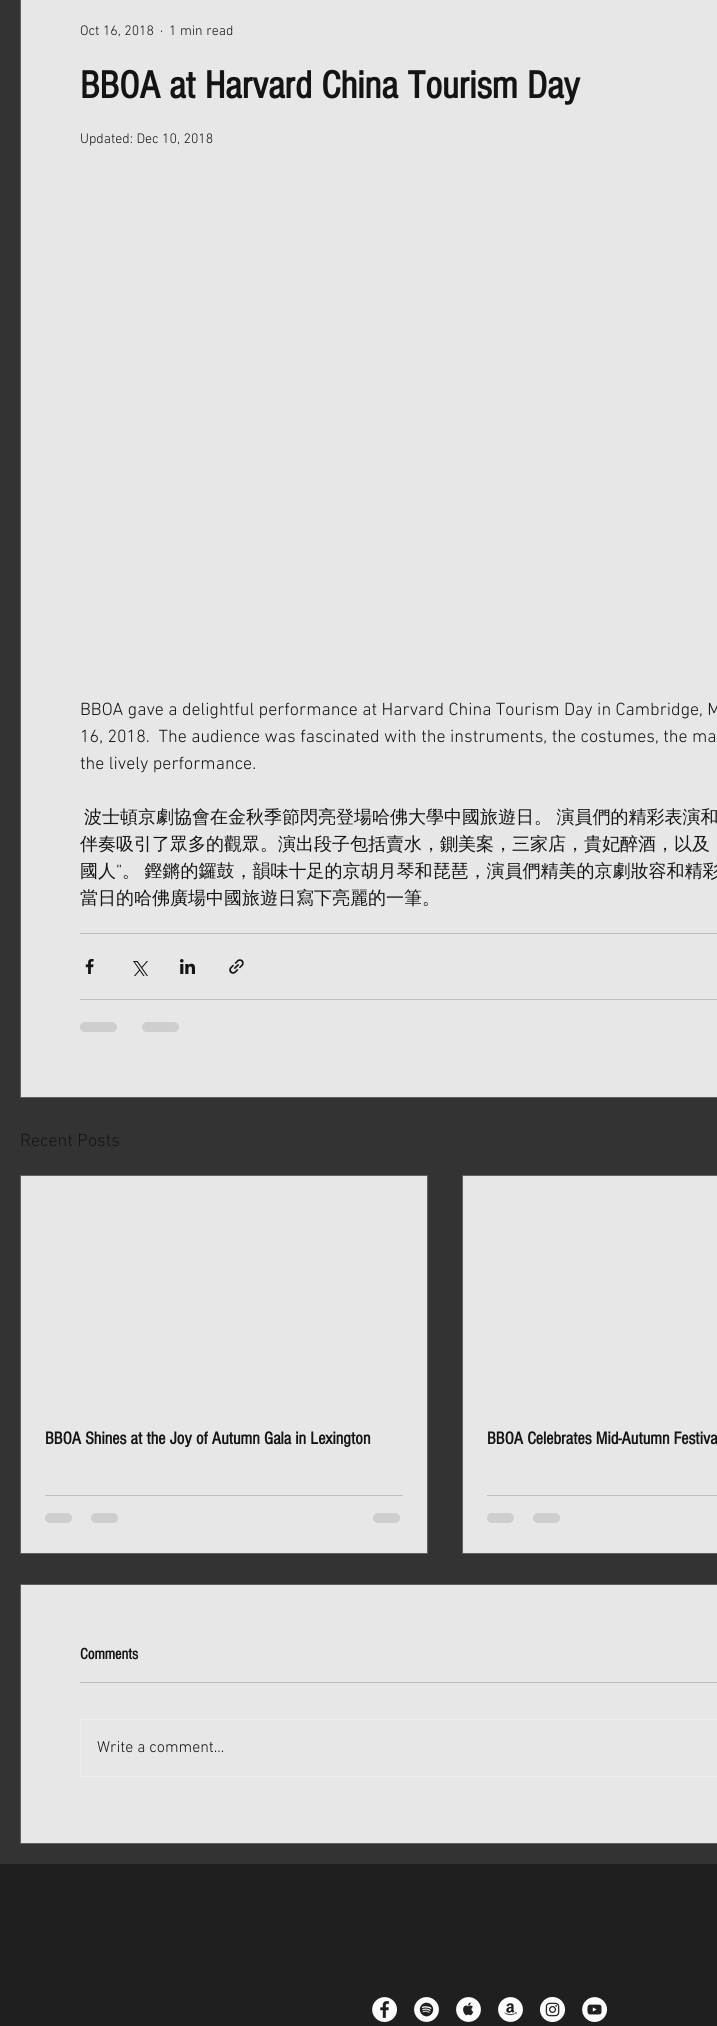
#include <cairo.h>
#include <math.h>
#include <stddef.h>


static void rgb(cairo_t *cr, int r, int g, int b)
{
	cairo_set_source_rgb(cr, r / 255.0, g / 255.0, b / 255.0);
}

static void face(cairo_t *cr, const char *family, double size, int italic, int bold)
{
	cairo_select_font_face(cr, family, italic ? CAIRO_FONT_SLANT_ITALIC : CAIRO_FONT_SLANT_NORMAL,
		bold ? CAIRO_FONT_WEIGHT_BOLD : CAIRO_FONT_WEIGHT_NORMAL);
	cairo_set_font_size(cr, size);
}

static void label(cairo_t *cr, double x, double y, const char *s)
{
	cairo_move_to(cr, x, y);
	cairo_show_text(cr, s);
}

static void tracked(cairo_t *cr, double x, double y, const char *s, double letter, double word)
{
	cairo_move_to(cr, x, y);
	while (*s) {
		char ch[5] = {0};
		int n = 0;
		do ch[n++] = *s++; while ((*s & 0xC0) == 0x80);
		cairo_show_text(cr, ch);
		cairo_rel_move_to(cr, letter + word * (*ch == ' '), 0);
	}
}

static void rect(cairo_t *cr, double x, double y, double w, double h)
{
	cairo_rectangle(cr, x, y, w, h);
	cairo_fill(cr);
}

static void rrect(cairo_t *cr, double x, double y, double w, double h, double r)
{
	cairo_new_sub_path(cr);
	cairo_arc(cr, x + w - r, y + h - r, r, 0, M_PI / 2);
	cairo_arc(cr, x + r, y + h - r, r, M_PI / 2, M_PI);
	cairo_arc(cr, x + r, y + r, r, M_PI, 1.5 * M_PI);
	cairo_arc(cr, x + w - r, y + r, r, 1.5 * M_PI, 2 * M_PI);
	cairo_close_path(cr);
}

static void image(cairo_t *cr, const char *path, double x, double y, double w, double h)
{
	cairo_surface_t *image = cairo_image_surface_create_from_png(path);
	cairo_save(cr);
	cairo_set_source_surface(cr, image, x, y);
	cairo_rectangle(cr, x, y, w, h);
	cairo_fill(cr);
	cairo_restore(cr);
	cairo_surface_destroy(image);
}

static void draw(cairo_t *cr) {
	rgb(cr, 51, 51, 51);
	cairo_paint(cr);
	rgb(cr, 231, 231, 231);
	cairo_rectangle(cr, 20.5, -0.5, 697, 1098);
	cairo_fill_preserve(cr);
	rgb(cr, 96, 96, 96);
	cairo_set_line_width(cr, 1);
	cairo_stroke(cr);
	face(cr, "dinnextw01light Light", 14, 0, 0);
	rgb(cr, 20, 20, 20);
	label(cr, 80, 35, "Oct 16, 2018");
	label(cr, 160, 35, "·");
	label(cr, 169, 35, "1 min read");
	face(cr, "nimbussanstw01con", 40, 0, 1);
	label(cr, 80, 98, "BBOA at Harvard China Tourism Day");
	face(cr, "dinnextw01light Light", 14, 0, 0);
	label(cr, 80, 143, "Updated: Dec 10, 2018");
	face(cr, "dinnextw01light Light", 18, 0, 0);
	label(cr, 80, 715, "BBOA gave a delightful performance at Harvard China Tourism Day in Cambridge, M");
	label(cr, 80, 742, "16, 2018.  The audience was fascinated with the instruments, the costumes, the ma");
	label(cr, 80, 769, "the lively performance.");
	face(cr, "WenQuanYi Zen Hei Medium", 18, 0, 0);
	tracked(cr, 84, 823, "波士頓京劇協會在金秋季節閃亮登場哈佛大學中國旅遊日。 演員們的精彩表演和", 0, -1);
	label(cr, 80, 850, "伴奏吸引了眾多的觀眾。演出段子包括賣水，鍘美案，三家店，貴妃醉酒，以及");
	label(cr, 80, 877, "國人");
	face(cr, "dinnextw01light Light", 18, 0, 0);
	label(cr, 116, 877, "”");
	face(cr, "WenQuanYi Zen Hei Medium", 18, 0, 0);
	tracked(cr, 122, 877, "。 鏗鏘的鑼鼓，韻味十足的京胡月琴和琵琶，演員們精美的京劇妝容和精彩", 0, -1);
	label(cr, 80, 904, "當日的哈佛廣場中國旅遊日寫下亮麗的一筆。");
	rgb(cr, 189, 189, 189);
	rect(cr, 80, 933, 637, 1);
	image(cr, "image0.png", 85, 959, 9, 15);
	image(cr, "image1.png", 133, 961, 15, 15);
	image(cr, "image2.png", 180, 959, 15, 15);
	image(cr, "image3.png", 229, 959, 15, 15);
	rect(cr, 80, 999, 637, 1);
	rgb(cr, 206, 206, 206);
	rrect(cr, 80, 1022, 37, 10, 5);
	cairo_fill(cr);
	rrect(cr, 142, 1022, 37, 10, 5);
	cairo_fill(cr);
	face(cr, "dinnextw01light Light", 18, 0, 0);
	rgb(cr, 20, 20, 20);
	label(cr, 20, 1146, "Recent Posts");
	rgb(cr, 231, 231, 231);
	cairo_rectangle(cr, 20.5, 1175.5, 407, 378);
	cairo_fill_preserve(cr);
	rgb(cr, 96, 96, 96);
	cairo_stroke(cr);
	face(cr, "nimbussanstw01con", 18, 0, 1);
	rgb(cr, 20, 20, 20);
	label(cr, 45, 1444, "BBOA Shines at the Joy of Autumn Gala in Lexington");
	rgb(cr, 189, 189, 189);
	rect(cr, 45, 1495, 358, 1);
	rgb(cr, 206, 206, 206);
	rrect(cr, 45, 1513, 27, 10, 5);
	cairo_fill(cr);
	rrect(cr, 91, 1513, 27, 10, 5);
	cairo_fill(cr);
	rrect(cr, 373, 1513, 27, 10, 5);
	cairo_fill(cr);
	rgb(cr, 231, 231, 231);
	cairo_rectangle(cr, 462.5, 1175.5, 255, 378);
	cairo_fill_preserve(cr);
	rgb(cr, 96, 96, 96);
	cairo_stroke(cr);
	rgb(cr, 20, 20, 20);
	label(cr, 487, 1444, "BBOA Celebrates Mid-Autumn Festiva");
	rgb(cr, 189, 189, 189);
	rect(cr, 487, 1495, 230, 1);
	rgb(cr, 206, 206, 206);
	rrect(cr, 487, 1513, 27, 10, 5);
	cairo_fill(cr);
	rrect(cr, 533, 1513, 27, 10, 5);
	cairo_fill(cr);
	rgb(cr, 231, 231, 231);
	cairo_rectangle(cr, 20.5, 1584.5, 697, 259);
	cairo_fill_preserve(cr);
	rgb(cr, 96, 96, 96);
	cairo_stroke(cr);
	face(cr, "nimbussanstw01con", 16, 0, 1);
	rgb(cr, 20, 20, 20);
	label(cr, 80, 1659, "Comments");
	rgb(cr, 189, 189, 189);
	rect(cr, 80, 1682, 637, 1);
	cairo_rectangle(cr, 80.5, 1719.5, 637, 57);
	rgb(cr, 238, 238, 238);
	cairo_stroke(cr);
	face(cr, "dinnextw01light Light", 16, 0, 0);
	rgb(cr, 20, 20, 20);
	label(cr, 97, 1752, "Write a comment...");
	rgb(cr, 31, 31, 31);
	rect(cr, 0, 1864, 717, 162);
	image(cr, "image4.png", 372, 1997, 25, 25);
	image(cr, "image5.png", 414, 1997, 25, 25);
	image(cr, "image6.png", 456, 1997, 25, 25);
	image(cr, "image7.png", 498, 1997, 25, 25);
	image(cr, "image8.png", 540, 1997, 25, 25);
	image(cr, "image9.png", 582, 1997, 25, 25);
}

int main(void) {
	cairo_surface_t *surface = cairo_image_surface_create(CAIRO_FORMAT_RGB24, 717, 2026);
	cairo_t *cr = cairo_create(surface);
	cairo_font_options_t *options = cairo_font_options_create();
	cairo_font_options_set_hint_metrics(options, CAIRO_HINT_METRICS_OFF);
	cairo_font_options_set_hint_style(options, CAIRO_HINT_STYLE_NONE);
	cairo_set_font_options(cr, options);
	cairo_set_miter_limit(cr, 4);
	draw(cr);
	cairo_surface_write_to_png(surface, "render.png");
	cairo_font_options_destroy(options);
	cairo_destroy(cr);
	cairo_surface_destroy(surface);
	return 0;
}
